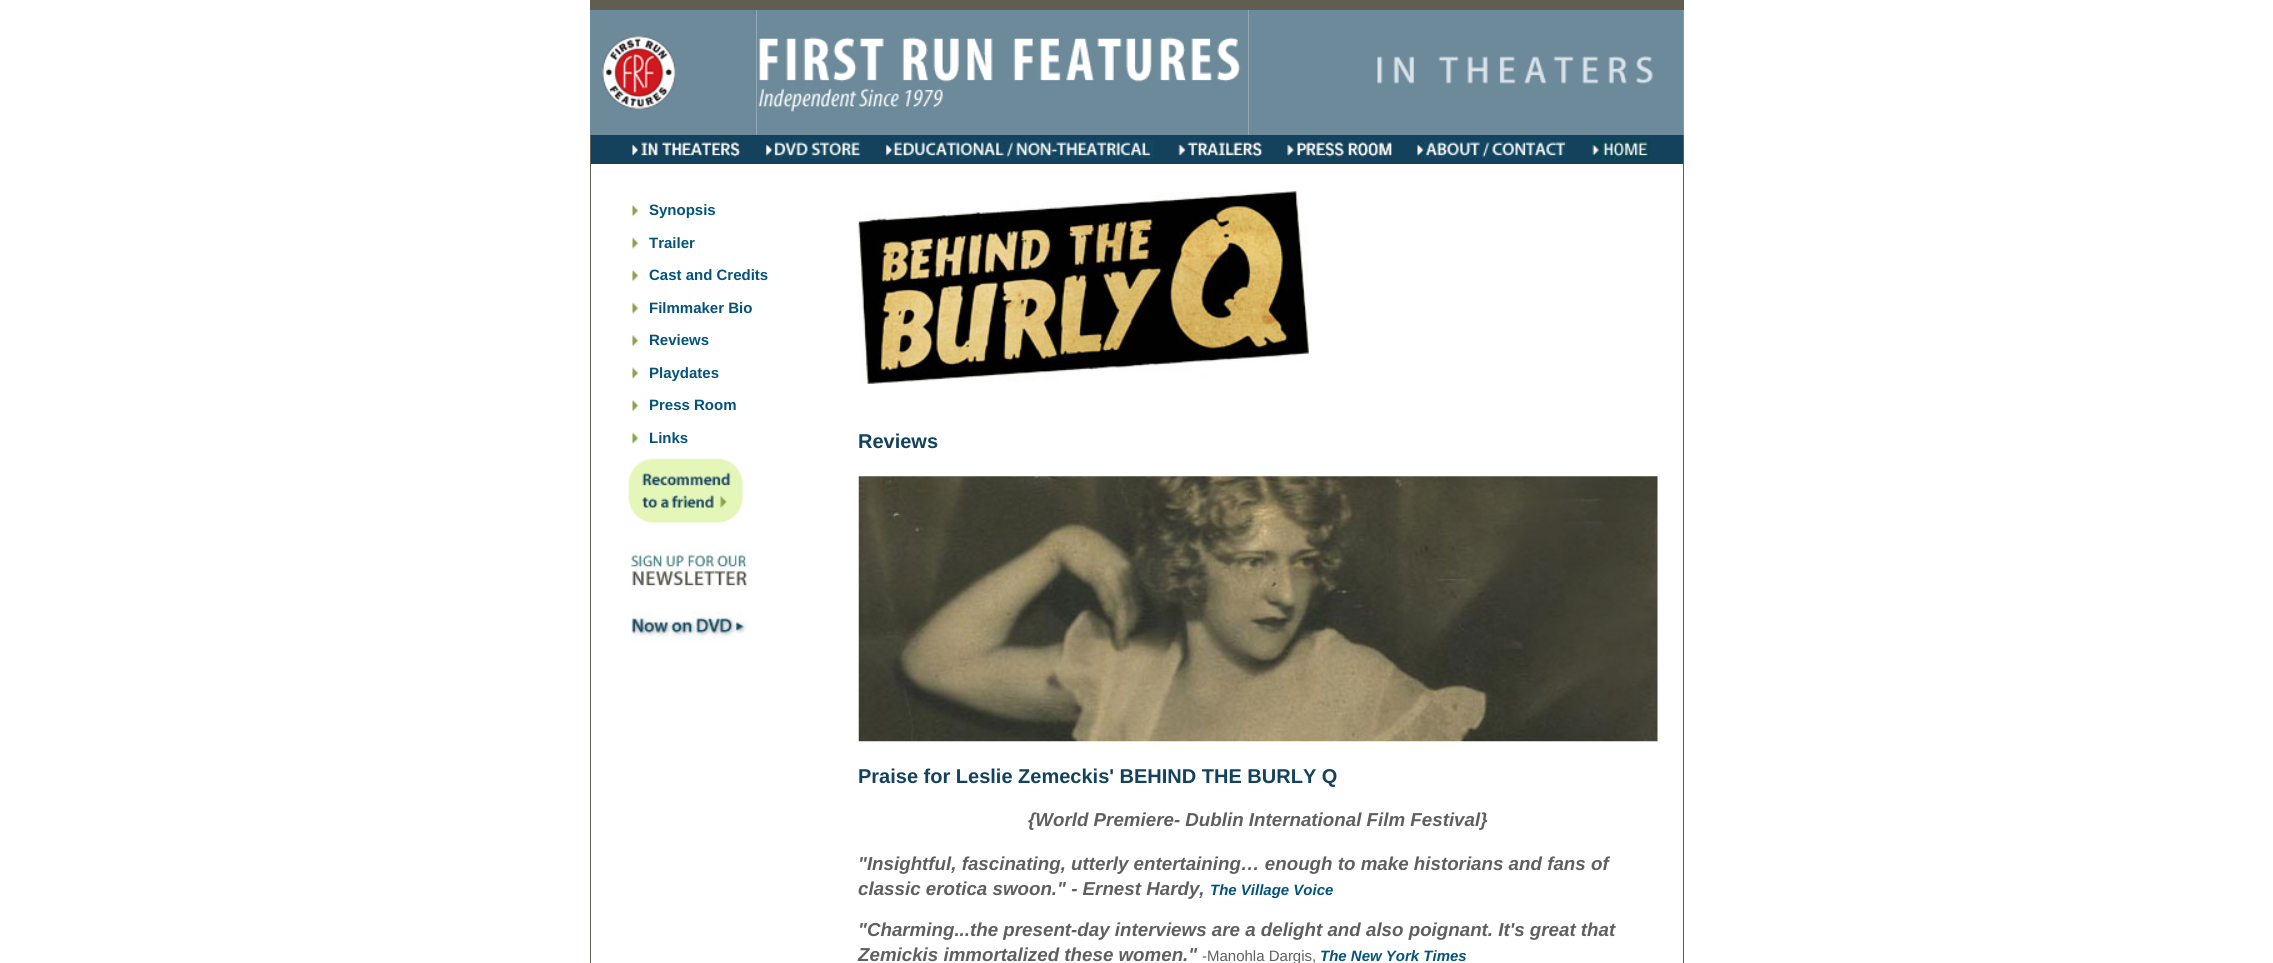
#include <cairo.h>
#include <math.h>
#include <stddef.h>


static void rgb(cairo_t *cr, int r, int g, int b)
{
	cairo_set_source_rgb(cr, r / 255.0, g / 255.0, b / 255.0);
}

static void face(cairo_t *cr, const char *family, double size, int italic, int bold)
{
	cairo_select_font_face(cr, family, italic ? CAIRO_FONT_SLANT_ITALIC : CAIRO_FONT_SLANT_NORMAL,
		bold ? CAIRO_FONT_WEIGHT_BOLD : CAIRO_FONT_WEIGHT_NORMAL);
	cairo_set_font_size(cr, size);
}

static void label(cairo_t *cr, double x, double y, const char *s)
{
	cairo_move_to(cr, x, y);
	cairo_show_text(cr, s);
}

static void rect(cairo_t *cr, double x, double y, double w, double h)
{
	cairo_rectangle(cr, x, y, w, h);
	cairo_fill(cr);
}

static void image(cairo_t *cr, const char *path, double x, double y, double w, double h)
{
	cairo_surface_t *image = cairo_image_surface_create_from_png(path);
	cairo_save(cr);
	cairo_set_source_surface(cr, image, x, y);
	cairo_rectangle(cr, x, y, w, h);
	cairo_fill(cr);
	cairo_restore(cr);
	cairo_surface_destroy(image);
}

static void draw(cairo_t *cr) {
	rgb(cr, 255, 255, 255);
	cairo_paint(cr);
	rgb(cr, 96, 95, 79);
	rect(cr, 590, 0, 1094, 10);
	rgb(cr, 109, 138, 155);
	rect(cr, 590, 10, 10, 125);
	image(cr, "image0.png", 600, 10, 115, 125);
	rect(cr, 715, 10, 41, 125);
	image(cr, "image1.png", 756, 10, 493, 125);
	rect(cr, 1249, 10, 434, 125);
	image(cr, "image2.png", 1377, 56, 276, 28);
	rgb(cr, 115, 157, 167);
	rect(cr, 1683, 10, 1, 125);
	rgb(cr, 96, 95, 79);
	rect(cr, 590, 135, 1, 828);
	rgb(cr, 20, 66, 92);
	rect(cr, 591, 135, 1092, 29);
	image(cr, "image3.png", 632, 140, 110, 19);
	image(cr, "image4.png", 766, 140, 95, 19);
	image(cr, "image5.png", 886, 140, 268, 19);
	image(cr, "image6.png", 1178, 140, 85, 19);
	image(cr, "image7.png", 1287, 140, 106, 19);
	image(cr, "image8.png", 1417, 140, 151, 19);
	image(cr, "image9.png", 1592, 140, 58, 19);
	rgb(cr, 96, 95, 79);
	rect(cr, 1683, 135, 1, 828);
	image(cr, "image10.png", 632, 205, 7, 12);
	face(cr, "Liberation Sans", 15, 0, 1);
	rgb(cr, 4, 83, 123);
	label(cr, 649, 215, "Synopsis");
	image(cr, "image11.png", 632, 237, 7, 12);
	label(cr, 649, 248, "Trailer");
	image(cr, "image10.png", 632, 270, 7, 12);
	label(cr, 649, 280, "Cast and Credits");
	image(cr, "image11.png", 632, 302, 7, 12);
	label(cr, 649, 313, "Filmmaker Bio");
	image(cr, "image10.png", 632, 335, 7, 12);
	label(cr, 649, 345, "Reviews");
	image(cr, "image11.png", 632, 367, 7, 12);
	label(cr, 649, 378, "Playdates");
	image(cr, "image10.png", 632, 400, 7, 12);
	label(cr, 649, 410, "Press Room");
	image(cr, "image11.png", 632, 432, 7, 12);
	label(cr, 649, 443, "Links");
	image(cr, "image12.png", 628, 458, 115, 65);
	image(cr, "image13.png", 631, 551, 117, 40);
	image(cr, "image14.png", 631, 611, 117, 30);
	image(cr, "image15.png", 858, 191, 451, 193);
	face(cr, "Liberation Sans", 20, 0, 1);
	rgb(cr, 19, 66, 92);
	label(cr, 858, 448, "Reviews");
	image(cr, "image16.png", 858, 476, 800, 266);
	label(cr, 858, 783, "Praise for Leslie Zemeckis' BEHIND THE BURLY Q");
	face(cr, "Liberation Sans", 18.75, 1, 1);
	rgb(cr, 95, 95, 95);
	label(cr, 1028, 826, "{World Premiere- Dublin International Film Festival}");
	label(cr, 858, 870, "\"Insightful, fascinating, utterly entertaining… enough to make historians and fans of");
	label(cr, 858, 895, "classic erotica swoon.\" - Ernest Hardy,");
	face(cr, "Liberation Sans", 15, 1, 1);
	rgb(cr, 4, 83, 123);
	label(cr, 1210, 895, "The Village Voice");
	face(cr, "Liberation Sans", 18.75, 1, 1);
	rgb(cr, 95, 95, 95);
	label(cr, 858, 936, "\"Charming...the present-day interviews are a delight and also poignant. It's great that");
	label(cr, 858, 961, "Zemickis immortalized these women.\"");
	face(cr, "Liberation Sans", 15, 0, 0);
	label(cr, 1202, 961, "-Manohla Dargis,");
	face(cr, "Liberation Sans", 15, 1, 1);
	rgb(cr, 4, 83, 123);
	label(cr, 1320, 961, "The New York Times");
}

int main(void) {
	cairo_surface_t *surface = cairo_image_surface_create(CAIRO_FORMAT_RGB24, 2273, 963);
	cairo_t *cr = cairo_create(surface);
	cairo_font_options_t *options = cairo_font_options_create();
	cairo_font_options_set_hint_metrics(options, CAIRO_HINT_METRICS_OFF);
	cairo_font_options_set_hint_style(options, CAIRO_HINT_STYLE_NONE);
	cairo_set_font_options(cr, options);
	cairo_set_miter_limit(cr, 4);
	draw(cr);
	cairo_surface_write_to_png(surface, "render.png");
	cairo_font_options_destroy(options);
	cairo_destroy(cr);
	cairo_surface_destroy(surface);
	return 0;
}
